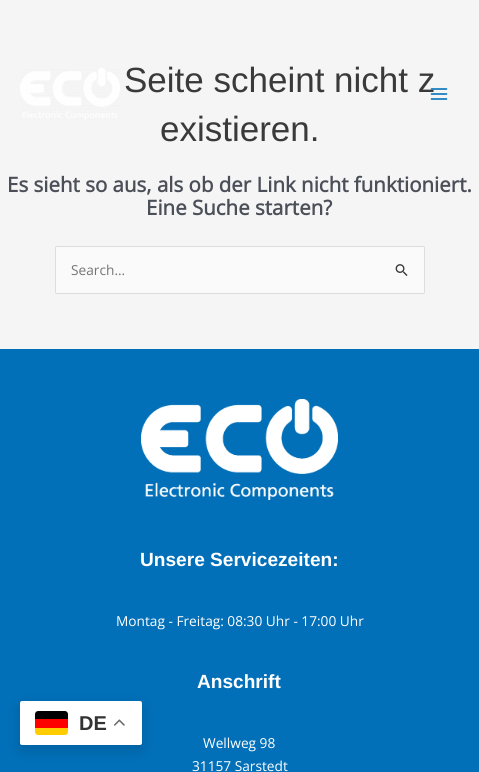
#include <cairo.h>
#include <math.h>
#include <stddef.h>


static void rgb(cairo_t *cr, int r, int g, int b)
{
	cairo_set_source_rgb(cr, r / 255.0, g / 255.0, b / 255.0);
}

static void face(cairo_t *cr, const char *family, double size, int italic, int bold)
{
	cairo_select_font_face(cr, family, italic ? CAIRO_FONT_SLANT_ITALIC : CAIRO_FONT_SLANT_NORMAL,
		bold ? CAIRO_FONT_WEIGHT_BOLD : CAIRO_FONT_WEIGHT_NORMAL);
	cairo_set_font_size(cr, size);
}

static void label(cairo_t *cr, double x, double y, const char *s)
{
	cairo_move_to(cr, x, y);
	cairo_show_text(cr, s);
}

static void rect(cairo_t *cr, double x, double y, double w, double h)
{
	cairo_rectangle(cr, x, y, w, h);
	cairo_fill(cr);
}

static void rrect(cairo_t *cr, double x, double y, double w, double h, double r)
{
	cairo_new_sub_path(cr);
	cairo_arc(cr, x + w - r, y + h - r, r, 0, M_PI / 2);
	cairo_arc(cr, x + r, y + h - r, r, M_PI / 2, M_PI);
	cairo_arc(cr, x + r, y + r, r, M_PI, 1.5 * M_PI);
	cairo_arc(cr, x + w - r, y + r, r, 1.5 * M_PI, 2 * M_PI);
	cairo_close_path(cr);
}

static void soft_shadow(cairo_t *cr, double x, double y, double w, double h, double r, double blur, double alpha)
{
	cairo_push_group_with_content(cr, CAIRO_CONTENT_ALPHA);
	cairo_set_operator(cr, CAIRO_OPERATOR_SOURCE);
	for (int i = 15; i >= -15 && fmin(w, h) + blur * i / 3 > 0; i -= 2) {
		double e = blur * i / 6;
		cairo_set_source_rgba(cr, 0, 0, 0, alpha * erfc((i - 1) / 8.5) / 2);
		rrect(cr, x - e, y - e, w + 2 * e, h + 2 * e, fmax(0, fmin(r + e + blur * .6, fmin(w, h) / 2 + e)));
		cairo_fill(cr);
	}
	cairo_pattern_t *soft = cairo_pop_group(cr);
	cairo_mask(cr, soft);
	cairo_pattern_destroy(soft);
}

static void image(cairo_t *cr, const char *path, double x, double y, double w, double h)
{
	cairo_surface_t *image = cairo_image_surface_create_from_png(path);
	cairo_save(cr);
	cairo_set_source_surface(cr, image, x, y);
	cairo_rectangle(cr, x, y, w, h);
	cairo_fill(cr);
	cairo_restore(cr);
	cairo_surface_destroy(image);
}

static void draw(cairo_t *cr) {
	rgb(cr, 245, 245, 245);
	cairo_paint(cr);
	face(cr, "Liberation Sans", 35, 0, 0);
	rgb(cr, 58, 58, 58);
	label(cr, 124, 92, "Seite scheint nicht z");
	label(cr, 160, 141, "existieren.");
	face(cr, "Open Sans", 20.5, 0, 1);
	rgb(cr, 75, 79, 88);
	label(cr, 7, 192, "Es sieht so aus, als ob der Link nicht funktioniert.");
	label(cr, 146, 215, "Eine Suche starten?");
	rgb(cr, 250, 250, 250);
	rrect(cr, 55.5, 246.5, 369, 47, 1.5);
	cairo_fill_preserve(cr);
	rgb(cr, 221, 221, 221);
	cairo_set_line_width(cr, 1);
	cairo_stroke(cr);
	face(cr, "Open Sans", 13.7, 0, 0);
	rgb(cr, 117, 117, 117);
	label(cr, 71, 275, "Search...");
	image(cr, "image0.png", 395, 264, 13, 12);
	image(cr, "image1.png", 20, 68, 100, 52);
	image(cr, "image2.png", 430, 88, 18, 12);
	rgb(cr, 1, 112, 185);
	rect(cr, 0, 349, 479, 423);
	image(cr, "image3.png", 141, 399, 197, 101);
	face(cr, "Liberation Sans", 19.1, 0, 1);
	rgb(cr, 255, 255, 255);
	label(cr, 140, 566, "Unsere Servicezeiten:");
	face(cr, "Open Sans", 13.7, 0, 0);
	label(cr, 116, 626, "Montag - Freitag: 08:30 Uhr - 17:00 Uhr");
	face(cr, "Liberation Sans", 19.1, 0, 1);
	label(cr, 197, 688, "Anschrift");
	face(cr, "Open Sans", 13.7, 0, 0);
	label(cr, 203, 748, "Wellweg 98");
	label(cr, 192, 771, "31157 Sarstedt");
	rgb(cr, 0, 0, 0);
	soft_shadow(cr, 20, 706, 122, 44, 2, 7.5, 0.15);
	rgb(cr, 255, 255, 255);
	rrect(cr, 20, 701, 122, 44, 2);
	cairo_fill(cr);
	rgb(cr, 255, 204, 0);
	cairo_new_path(cr);
	cairo_move_to(cr, 35, 728);
	cairo_line_to(cr, 68, 728);
	cairo_line_to(cr, 68, 732);
	cairo_curve_to(cr, 68, 733.5, 66.5, 735, 65, 735);
	cairo_line_to(cr, 38, 735);
	cairo_curve_to(cr, 36.5, 735, 35, 733.5, 35, 732);
	cairo_close_path(cr);
	cairo_fill(cr);
	rgb(cr, 0, 0, 0);
	cairo_new_path(cr);
	cairo_move_to(cr, 38, 711);
	cairo_line_to(cr, 65, 711);
	cairo_curve_to(cr, 66.5, 711, 68, 712.5, 68, 714);
	cairo_line_to(cr, 68, 719);
	cairo_line_to(cr, 35, 719);
	cairo_line_to(cr, 35, 714);
	cairo_curve_to(cr, 35, 712.5, 36.5, 711, 38, 711);
	cairo_close_path(cr);
	cairo_fill(cr);
	rgb(cr, 255, 0, 0);
	rect(cr, 35, 719, 33, 9);
	face(cr, "Liberation Sans", 20, 0, 1);
	rgb(cr, 51, 51, 51);
	label(cr, 79, 730, "DE");
	image(cr, "image4.png", 114, 719, 11, 7);
}

int main(void) {
	cairo_surface_t *surface = cairo_image_surface_create(CAIRO_FORMAT_RGB24, 479, 772);
	cairo_t *cr = cairo_create(surface);
	cairo_font_options_t *options = cairo_font_options_create();
	cairo_font_options_set_hint_metrics(options, CAIRO_HINT_METRICS_OFF);
	cairo_font_options_set_hint_style(options, CAIRO_HINT_STYLE_NONE);
	cairo_set_font_options(cr, options);
	cairo_set_miter_limit(cr, 4);
	draw(cr);
	cairo_surface_write_to_png(surface, "render.png");
	cairo_font_options_destroy(options);
	cairo_destroy(cr);
	cairo_surface_destroy(surface);
	return 0;
}
